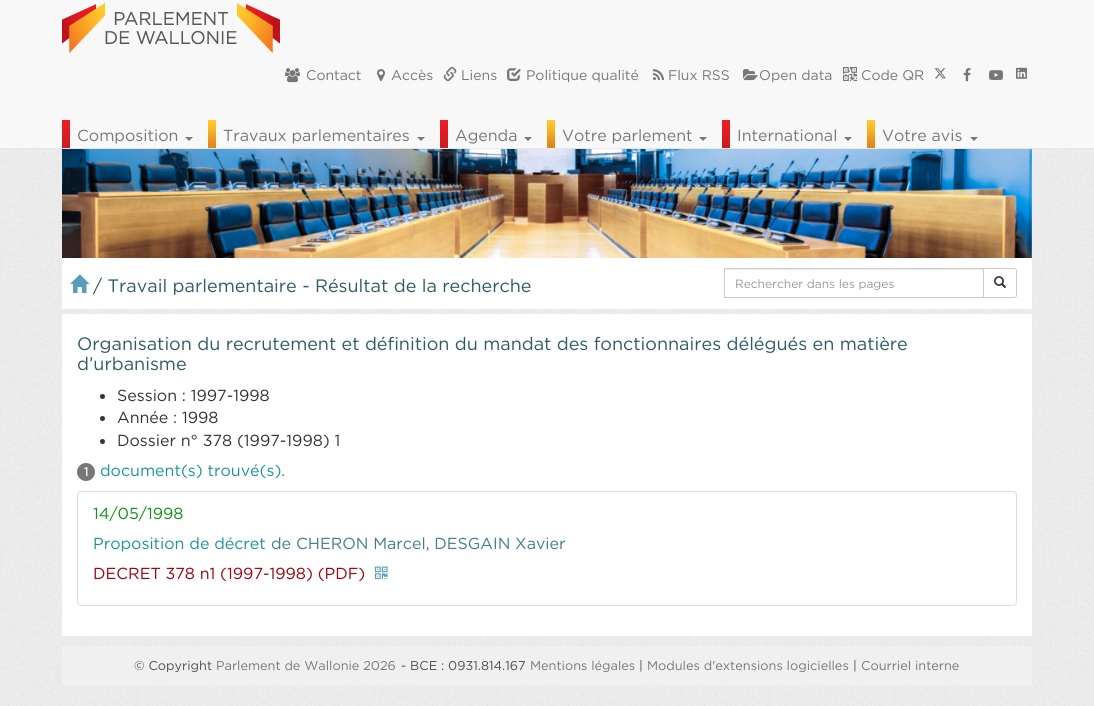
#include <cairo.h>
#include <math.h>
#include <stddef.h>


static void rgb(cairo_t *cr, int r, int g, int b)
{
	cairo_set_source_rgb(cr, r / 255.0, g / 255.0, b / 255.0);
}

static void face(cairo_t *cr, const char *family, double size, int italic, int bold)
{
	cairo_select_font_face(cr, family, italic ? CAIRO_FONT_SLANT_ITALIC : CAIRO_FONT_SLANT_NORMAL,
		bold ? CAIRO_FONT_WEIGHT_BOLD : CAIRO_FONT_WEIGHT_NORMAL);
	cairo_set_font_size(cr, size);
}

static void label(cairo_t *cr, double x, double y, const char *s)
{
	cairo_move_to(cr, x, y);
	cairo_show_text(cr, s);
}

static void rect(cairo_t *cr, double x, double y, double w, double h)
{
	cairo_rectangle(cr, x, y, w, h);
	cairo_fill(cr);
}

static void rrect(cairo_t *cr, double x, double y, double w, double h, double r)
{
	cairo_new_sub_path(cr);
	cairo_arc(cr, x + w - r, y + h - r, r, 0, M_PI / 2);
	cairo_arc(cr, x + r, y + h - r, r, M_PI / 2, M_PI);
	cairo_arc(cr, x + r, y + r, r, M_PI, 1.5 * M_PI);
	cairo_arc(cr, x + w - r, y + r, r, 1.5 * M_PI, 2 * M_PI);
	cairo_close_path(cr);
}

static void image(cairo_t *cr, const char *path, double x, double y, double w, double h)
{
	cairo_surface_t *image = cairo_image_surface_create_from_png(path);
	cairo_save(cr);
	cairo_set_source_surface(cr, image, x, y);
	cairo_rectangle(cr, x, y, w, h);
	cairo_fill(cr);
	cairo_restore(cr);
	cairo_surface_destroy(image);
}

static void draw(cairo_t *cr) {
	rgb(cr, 255, 255, 255);
	cairo_paint(cr);
	image(cr, "image0.png", 0, 149, 1094, 557);
	rgb(cr, 248, 248, 248);
	rect(cr, 0, 0, 1094, 148);
	rgb(cr, 231, 231, 231);
	rect(cr, 0, 148, 1094, 1);
	image(cr, "image1.png", 62, 3, 218, 50);
	image(cr, "image2.png", 285, 68, 15, 15);
	face(cr, "Gotham", 14, 0, 0);
	rgb(cr, 119, 119, 119);
	label(cr, 306, 80, "Contact");
	image(cr, "image3.png", 377, 69, 8, 12);
	label(cr, 391, 80, "Accès");
	image(cr, "image4.png", 443, 66, 14, 16);
	label(cr, 461, 80, "Liens");
	image(cr, "image5.png", 507, 68, 14, 13);
	label(cr, 526, 80, "Politique qualité");
	image(cr, "image6.png", 653, 69, 11, 12);
	label(cr, 668, 80, "Flux RSS");
	image(cr, "image7.png", 743, 69, 15, 12);
	label(cr, 759, 80, "Open data");
	image(cr, "image8.png", 843, 67, 14, 14);
	label(cr, 861, 80, "Code QR");
	image(cr, "image9.png", 934, 68, 12, 11);
	image(cr, "image10.png", 963, 68, 8, 14);
	image(cr, "image11.png", 989, 70, 14, 10);
	image(cr, "image12.png", 1016, 67, 11, 12);
	image(cr, "image13.png", 62, 120, 8, 28);
	face(cr, "Gotham", 16, 0, 0);
	label(cr, 77, 141, "Composition");
	cairo_new_path(cr);
	cairo_move_to(cr, 185, 137);
	cairo_line_to(cr, 193, 137);
	cairo_line_to(cr, 189, 141);
	cairo_close_path(cr);
	cairo_fill(cr);
	image(cr, "image14.png", 208, 120, 8, 28);
	label(cr, 223, 141, "Travaux parlementaires");
	cairo_new_path(cr);
	cairo_move_to(cr, 417, 137);
	cairo_line_to(cr, 425, 137);
	cairo_line_to(cr, 421, 141);
	cairo_close_path(cr);
	cairo_fill(cr);
	image(cr, "image13.png", 440, 120, 8, 28);
	label(cr, 455, 141, "Agenda");
	cairo_new_path(cr);
	cairo_move_to(cr, 524, 137);
	cairo_line_to(cr, 532, 137);
	cairo_line_to(cr, 528, 141);
	cairo_close_path(cr);
	cairo_fill(cr);
	image(cr, "image14.png", 547, 120, 8, 28);
	label(cr, 562, 141, "Votre parlement");
	cairo_new_path(cr);
	cairo_move_to(cr, 699, 137);
	cairo_line_to(cr, 707, 137);
	cairo_line_to(cr, 703, 141);
	cairo_close_path(cr);
	cairo_fill(cr);
	image(cr, "image13.png", 722, 120, 8, 28);
	label(cr, 737, 141, "International");
	cairo_new_path(cr);
	cairo_move_to(cr, 844, 137);
	cairo_line_to(cr, 852, 137);
	cairo_line_to(cr, 848, 141);
	cairo_close_path(cr);
	cairo_fill(cr);
	image(cr, "image14.png", 867, 120, 8, 28);
	label(cr, 882, 141, "Votre avis");
	cairo_new_path(cr);
	cairo_move_to(cr, 970, 137);
	cairo_line_to(cr, 978, 137);
	cairo_line_to(cr, 974, 141);
	cairo_close_path(cr);
	cairo_fill(cr);
	image(cr, "image15.png", 62, 149, 970, 109);
	rgb(cr, 255, 255, 255);
	rect(cr, 62, 258, 970, 51);
	image(cr, "image16.png", 70, 274, 20, 19);
	face(cr, "Gotham", 18, 0, 0);
	rgb(cr, 46, 90, 101);
	label(cr, 93, 292, "/ Travail parlementaire - Résultat de la recherche");
	rgb(cr, 236, 236, 236);
	rect(cr, 725, 269, 258, 1);
	cairo_new_path(cr);
	cairo_move_to(cr, 983.5, 268.5);
	cairo_line_to(cr, 1014, 268.5);
	cairo_curve_to(cr, 1015.5, 268.5, 1016.5, 269.5, 1016.5, 271);
	cairo_line_to(cr, 1016.5, 295);
	cairo_curve_to(cr, 1016.5, 296.5, 1015.5, 297.5, 1014, 297.5);
	cairo_line_to(cr, 983.5, 297.5);
	cairo_close_path(cr);
	rgb(cr, 204, 204, 204);
	cairo_set_line_width(cr, 1);
	cairo_stroke(cr);
	cairo_rectangle(cr, 724.5, 268.5, 259, 29);
	cairo_stroke(cr);
	face(cr, "Gotham", 12, 0, 0);
	rgb(cr, 153, 153, 153);
	label(cr, 735, 288, "Rechercher dans les pages");
	image(cr, "image17.png", 994, 276, 12, 12);
	rgb(cr, 255, 255, 255);
	rect(cr, 62, 314, 970, 322);
	face(cr, "Gotham", 18, 0, 0);
	rgb(cr, 46, 90, 101);
	label(cr, 77, 350, "Organisation du recrutement et définition du mandat des fonctionnaires délégués en matière");
	label(cr, 77, 370, "d’urbanisme");
	rgb(cr, 51, 51, 51);
	cairo_new_path(cr);
	cairo_arc(cr, 102.5, 396.5, 2.5, 0, 2 * M_PI);
	cairo_fill(cr);
	face(cr, "Gotham", 16, 0, 0);
	label(cr, 117, 401, "Session : 1997-1998");
	cairo_new_path(cr);
	cairo_arc(cr, 102.5, 418.5, 2.5, 0, 2 * M_PI);
	cairo_fill(cr);
	label(cr, 117, 423, "Année : 1998");
	cairo_new_path(cr);
	cairo_arc(cr, 102.5, 441.5, 2.5, 0, 2 * M_PI);
	cairo_fill(cr);
	label(cr, 117, 446, "Dossier n° 378 (1997-1998) 1");
	rgb(cr, 119, 119, 119);
	cairo_new_path(cr);
	cairo_arc(cr, 86, 472, 9, 0, 2 * M_PI);
	cairo_fill(cr);
	face(cr, "Gotham", 12, 0, 1);
	rgb(cr, 255, 255, 255);
	label(cr, 84, 476, "1");
	face(cr, "Gotham", 16, 0, 0);
	rgb(cr, 24, 148, 157);
	label(cr, 100, 476, "document(s) trouvé(s).");
	rrect(cr, 77.5, 491.5, 939, 114, 3.5);
	rgb(cr, 221, 221, 221);
	cairo_stroke(cr);
	rgb(cr, 13, 147, 21);
	label(cr, 93, 519, "14/05/1998");
	rgb(cr, 24, 148, 157);
	label(cr, 93, 549, "Proposition de décret");
	rgb(cr, 65, 125, 140);
	label(cr, 271, 549, "de CHERON Marcel, DESGAIN Xavier");
	rgb(cr, 160, 0, 12);
	label(cr, 93, 579, "DECRET 378 n1 (1997-1998) (PDF)");
	image(cr, "image18.png", 375, 566, 13, 14);
	rgb(cr, 240, 240, 240);
	rect(cr, 62, 646, 970, 39);
	face(cr, "Gotham", 12.75, 0, 0);
	rgb(cr, 78, 78, 78);
	label(cr, 134, 670, "© Copyright");
	rgb(cr, 119, 119, 119);
	label(cr, 216, 670, "Parlement de Wallonie 2026");
	rgb(cr, 78, 78, 78);
	label(cr, 401, 670, "- BCE : 0931.814.167");
	rgb(cr, 119, 119, 119);
	label(cr, 530, 670, "Mentions légales");
	rgb(cr, 78, 78, 78);
	label(cr, 639, 670, "|");
	rgb(cr, 119, 119, 119);
	label(cr, 647, 670, "Modules d'extensions logicielles");
	rgb(cr, 78, 78, 78);
	label(cr, 853, 670, "|");
	rgb(cr, 119, 119, 119);
	label(cr, 861, 670, "Courriel interne");
}

int main(void) {
	cairo_surface_t *surface = cairo_image_surface_create(CAIRO_FORMAT_RGB24, 1094, 706);
	cairo_t *cr = cairo_create(surface);
	cairo_font_options_t *options = cairo_font_options_create();
	cairo_font_options_set_hint_metrics(options, CAIRO_HINT_METRICS_OFF);
	cairo_font_options_set_hint_style(options, CAIRO_HINT_STYLE_NONE);
	cairo_set_font_options(cr, options);
	cairo_set_miter_limit(cr, 4);
	draw(cr);
	cairo_surface_write_to_png(surface, "render.png");
	cairo_font_options_destroy(options);
	cairo_destroy(cr);
	cairo_surface_destroy(surface);
	return 0;
}
